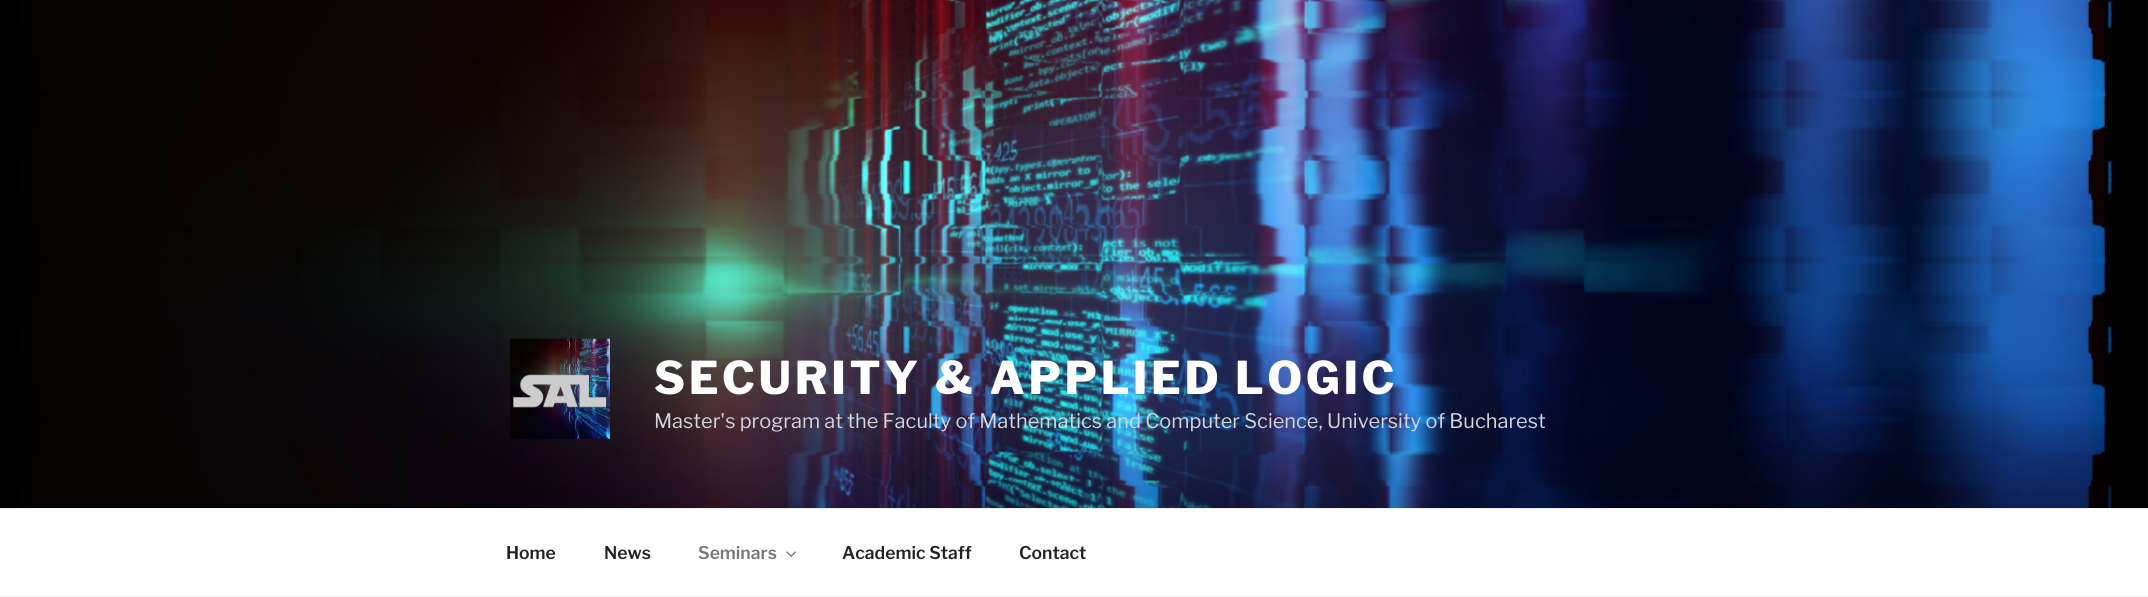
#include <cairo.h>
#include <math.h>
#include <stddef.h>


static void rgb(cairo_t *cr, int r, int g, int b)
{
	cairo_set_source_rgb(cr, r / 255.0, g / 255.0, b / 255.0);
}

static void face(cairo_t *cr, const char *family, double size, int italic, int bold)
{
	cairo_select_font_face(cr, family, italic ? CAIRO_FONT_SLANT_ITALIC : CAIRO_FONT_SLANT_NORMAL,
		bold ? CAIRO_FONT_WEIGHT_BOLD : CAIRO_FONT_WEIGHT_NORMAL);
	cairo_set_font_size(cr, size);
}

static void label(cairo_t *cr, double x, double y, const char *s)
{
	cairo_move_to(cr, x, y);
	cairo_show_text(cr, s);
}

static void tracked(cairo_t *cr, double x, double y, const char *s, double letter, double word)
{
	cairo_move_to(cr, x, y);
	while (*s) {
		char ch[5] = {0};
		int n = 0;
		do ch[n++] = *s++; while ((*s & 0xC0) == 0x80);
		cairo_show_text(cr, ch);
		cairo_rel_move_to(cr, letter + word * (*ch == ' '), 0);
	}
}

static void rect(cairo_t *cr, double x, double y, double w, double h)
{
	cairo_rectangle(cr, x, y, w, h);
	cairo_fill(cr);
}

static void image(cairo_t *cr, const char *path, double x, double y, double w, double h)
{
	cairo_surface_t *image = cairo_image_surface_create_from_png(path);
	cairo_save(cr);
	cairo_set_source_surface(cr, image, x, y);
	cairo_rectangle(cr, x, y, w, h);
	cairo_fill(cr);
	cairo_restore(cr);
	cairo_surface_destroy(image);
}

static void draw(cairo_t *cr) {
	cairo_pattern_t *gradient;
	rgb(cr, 255, 255, 255);
	cairo_paint(cr);
	image(cr, "image0.png", 0, 0, 2148, 508);
	gradient = cairo_pattern_create_linear(1074, 400, 1074, 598);
	cairo_pattern_add_color_stop_rgba(gradient, 0, 0, 0, 0, 0);
	cairo_pattern_add_color_stop_rgba(gradient, 0.75, 0, 0, 0, 0.3);
	cairo_pattern_add_color_stop_rgba(gradient, 1, 0, 0, 0, 0.3);
	cairo_set_source(cr, gradient);
	cairo_pattern_destroy(gradient);
	rect(cr, 434, 411, 1678, 97);
	image(cr, "image1.png", 510, 338, 100, 101);
	face(cr, "Libre Franklin Thin", 45, 0, 0);
	rgb(cr, 255, 255, 255);
	tracked(cr, 654, 394, "SECURITY & APPLIED LOGIC", 3.6, 0);
	face(cr, "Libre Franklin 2 Thin", 20, 0, 0);
	rgb(cr, 212, 215, 222);
	label(cr, 654, 428, "Master's program at the Faculty of Mathematics and Computer Science, University of Bucharest");
	rgb(cr, 238, 238, 238);
	rect(cr, 0, 508, 2148, 1);
	rect(cr, 0, 596, 2148, 1);
	face(cr, "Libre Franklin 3 Thin", 17.5, 0, 0);
	rgb(cr, 34, 34, 34);
	label(cr, 506, 559, "Home");
	label(cr, 604, 559, "News");
	rgb(cr, 118, 118, 118);
	label(cr, 698, 559, "Seminars");
	image(cr, "image2.png", 786, 551, 10, 6);
	rgb(cr, 34, 34, 34);
	label(cr, 842, 559, "Academic Staff");
	label(cr, 1019, 559, "Contact");
}

int main(void) {
	cairo_surface_t *surface = cairo_image_surface_create(CAIRO_FORMAT_RGB24, 2148, 597);
	cairo_t *cr = cairo_create(surface);
	cairo_font_options_t *options = cairo_font_options_create();
	cairo_font_options_set_hint_metrics(options, CAIRO_HINT_METRICS_OFF);
	cairo_font_options_set_hint_style(options, CAIRO_HINT_STYLE_NONE);
	cairo_set_font_options(cr, options);
	cairo_set_miter_limit(cr, 4);
	draw(cr);
	cairo_surface_write_to_png(surface, "render.png");
	cairo_font_options_destroy(options);
	cairo_destroy(cr);
	cairo_surface_destroy(surface);
	return 0;
}
